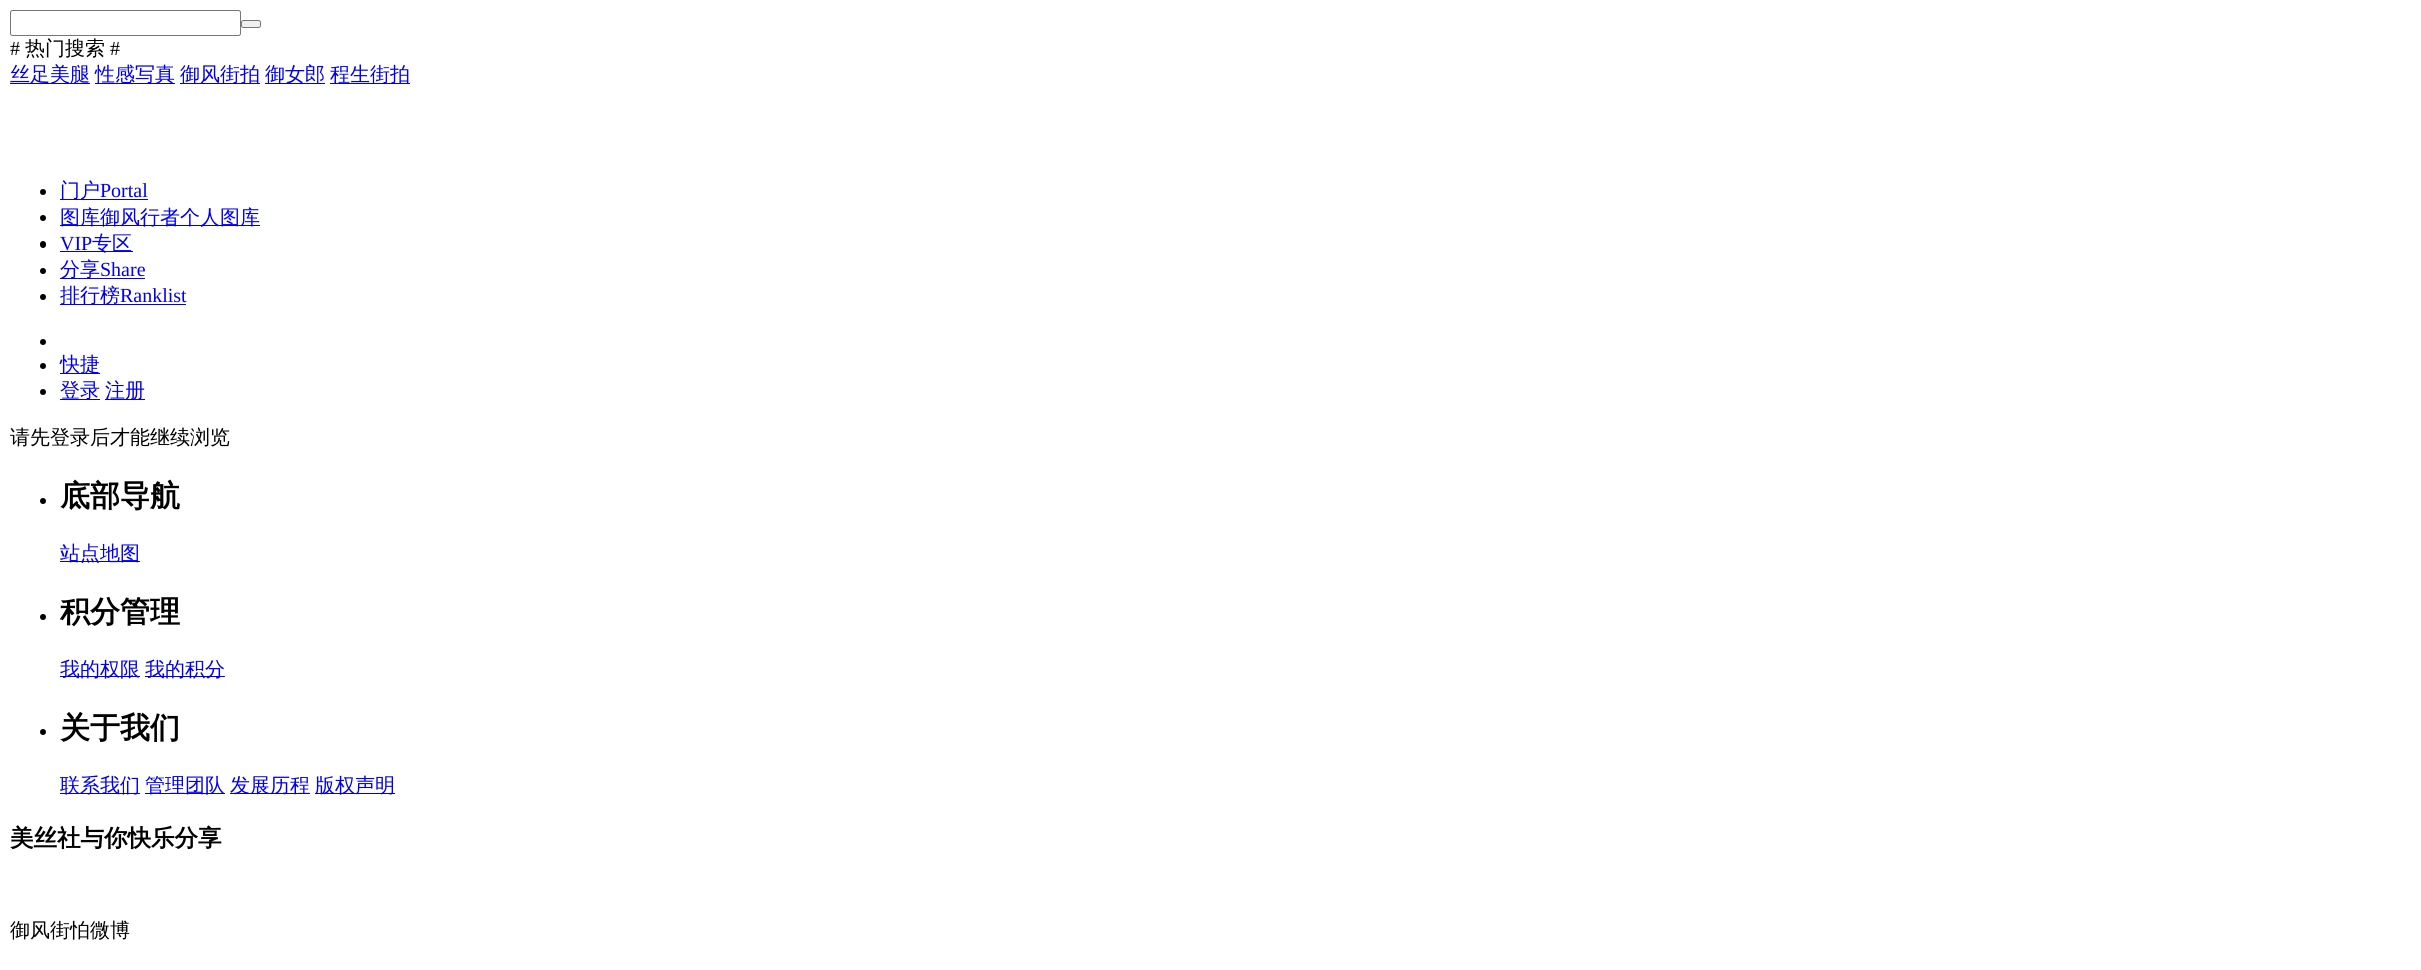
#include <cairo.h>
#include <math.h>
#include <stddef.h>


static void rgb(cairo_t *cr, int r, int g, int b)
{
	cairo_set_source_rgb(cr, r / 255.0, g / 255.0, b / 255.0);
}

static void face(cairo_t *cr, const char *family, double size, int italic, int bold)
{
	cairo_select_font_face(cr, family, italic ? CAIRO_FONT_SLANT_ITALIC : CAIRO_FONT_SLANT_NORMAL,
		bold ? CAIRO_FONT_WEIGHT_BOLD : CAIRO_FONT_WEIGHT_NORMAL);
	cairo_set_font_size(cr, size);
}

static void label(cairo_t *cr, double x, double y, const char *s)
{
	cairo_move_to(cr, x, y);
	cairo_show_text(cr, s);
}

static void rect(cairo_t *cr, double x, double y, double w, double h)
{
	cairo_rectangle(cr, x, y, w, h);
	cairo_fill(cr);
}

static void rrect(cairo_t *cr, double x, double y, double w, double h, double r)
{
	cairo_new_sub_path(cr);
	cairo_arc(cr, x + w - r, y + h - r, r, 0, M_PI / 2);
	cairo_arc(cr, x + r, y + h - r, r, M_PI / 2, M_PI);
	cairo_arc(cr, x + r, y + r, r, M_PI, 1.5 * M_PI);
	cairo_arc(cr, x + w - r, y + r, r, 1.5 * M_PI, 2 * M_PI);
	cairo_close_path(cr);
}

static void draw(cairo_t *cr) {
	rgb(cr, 255, 255, 255);
	cairo_paint(cr);
	rrect(cr, 10.5, 10.5, 230, 25, 2);
	rgb(cr, 118, 118, 118);
	cairo_set_line_width(cr, 1);
	cairo_stroke(cr);
	rgb(cr, 239, 239, 239);
	rrect(cr, 241.5, 20.5, 19, 7, 2);
	cairo_fill_preserve(cr);
	rgb(cr, 118, 118, 118);
	cairo_stroke(cr);
	face(cr, "Liberation Serif", 20, 0, 0);
	rgb(cr, 0, 0, 0);
	label(cr, 10, 55, "#");
	face(cr, "WenQuanYi Zen Hei Medium", 20, 0, 0);
	label(cr, 25, 55, "热门搜索");
	face(cr, "Liberation Serif", 20, 0, 0);
	label(cr, 110, 55, "#");
	rgb(cr, 0, 0, 238);
	rect(cr, 10, 83, 80, 1);
	face(cr, "WenQuanYi Zen Hei Medium", 20, 0, 0);
	label(cr, 10, 81, "丝足美腿");
	rect(cr, 95, 83, 80, 1);
	label(cr, 95, 81, "性感写真");
	rect(cr, 180, 83, 80, 1);
	label(cr, 180, 81, "御风街拍");
	rect(cr, 265, 83, 60, 1);
	label(cr, 265, 81, "御女郎");
	rect(cr, 330, 83, 80, 1);
	label(cr, 330, 81, "程生街拍");
	rgb(cr, 0, 0, 0);
	cairo_new_path(cr);
	cairo_arc(cr, 43, 192, 3, 0, 2 * M_PI);
	cairo_fill(cr);
	rgb(cr, 0, 0, 238);
	rect(cr, 60, 199, 88, 1);
	label(cr, 60, 197, "门户");
	face(cr, "Liberation Serif", 20, 0, 0);
	label(cr, 100, 197, "Portal");
	rgb(cr, 0, 0, 0);
	cairo_new_path(cr);
	cairo_arc(cr, 43, 218, 3, 0, 2 * M_PI);
	cairo_fill(cr);
	rgb(cr, 0, 0, 238);
	rect(cr, 60, 225, 200, 1);
	face(cr, "WenQuanYi Zen Hei Medium", 20, 0, 0);
	label(cr, 60, 224, "图库御风行者个人图库");
	rgb(cr, 0, 0, 0);
	rrect(cr, 40, 241, 6, 7, 3);
	cairo_fill(cr);
	face(cr, "Liberation Serif", 20, 0, 0);
	rgb(cr, 0, 0, 238);
	label(cr, 60, 250, "VIP");
	rect(cr, 60, 251, 73, 1);
	face(cr, "WenQuanYi Zen Hei Medium", 20, 0, 0);
	label(cr, 92, 250, "专区");
	rgb(cr, 0, 0, 0);
	cairo_new_path(cr);
	cairo_arc(cr, 43, 271, 3, 0, 2 * M_PI);
	cairo_fill(cr);
	rgb(cr, 0, 0, 238);
	rect(cr, 60, 278, 85, 1);
	label(cr, 60, 276, "分享");
	face(cr, "Liberation Serif", 20, 0, 0);
	label(cr, 100, 276, "Share");
	rgb(cr, 0, 0, 0);
	cairo_new_path(cr);
	cairo_arc(cr, 43, 297, 3, 0, 2 * M_PI);
	cairo_fill(cr);
	rgb(cr, 0, 0, 238);
	rect(cr, 60, 304, 126, 1);
	face(cr, "WenQuanYi Zen Hei Medium", 20, 0, 0);
	label(cr, 60, 302, "排行榜");
	face(cr, "Liberation Serif", 20, 0, 0);
	label(cr, 120, 302, "Ranklist");
	rgb(cr, 0, 0, 0);
	cairo_new_path(cr);
	cairo_arc(cr, 43, 342, 3, 0, 2 * M_PI);
	cairo_fill(cr);
	cairo_arc(cr, 43, 366, 3, 0, 2 * M_PI);
	cairo_fill(cr);
	rgb(cr, 0, 0, 238);
	rect(cr, 60, 373, 40, 1);
	face(cr, "WenQuanYi Zen Hei Medium", 20, 0, 0);
	label(cr, 60, 371, "快捷");
	rgb(cr, 0, 0, 0);
	cairo_new_path(cr);
	cairo_arc(cr, 43, 392, 3, 0, 2 * M_PI);
	cairo_fill(cr);
	rgb(cr, 0, 0, 238);
	rect(cr, 60, 399, 40, 1);
	label(cr, 60, 397, "登录");
	rect(cr, 105, 399, 40, 1);
	label(cr, 105, 397, "注册");
	rgb(cr, 0, 0, 0);
	label(cr, 10, 444, "请先登录后才能继续浏览");
	cairo_new_path(cr);
	cairo_arc(cr, 43, 501, 3, 0, 2 * M_PI);
	cairo_fill(cr);
	face(cr, "WenQuanYi Zen Hei", 30, 0, 1);
	label(cr, 60, 506, "底部导航");
	rgb(cr, 0, 0, 238);
	rect(cr, 60, 561, 80, 1);
	face(cr, "WenQuanYi Zen Hei Medium", 20, 0, 0);
	label(cr, 60, 560, "站点地图");
	rgb(cr, 0, 0, 0);
	cairo_new_path(cr);
	cairo_arc(cr, 43, 617, 3, 0, 2 * M_PI);
	cairo_fill(cr);
	face(cr, "WenQuanYi Zen Hei", 30, 0, 1);
	label(cr, 60, 622, "积分管理");
	rgb(cr, 0, 0, 238);
	rect(cr, 60, 676, 80, 1);
	face(cr, "WenQuanYi Zen Hei Medium", 20, 0, 0);
	label(cr, 60, 676, "我的权限");
	rect(cr, 145, 676, 80, 1);
	label(cr, 145, 676, "我的积分");
	rgb(cr, 0, 0, 0);
	cairo_new_path(cr);
	cairo_arc(cr, 43, 732, 3, 0, 2 * M_PI);
	cairo_fill(cr);
	face(cr, "WenQuanYi Zen Hei", 30, 0, 1);
	label(cr, 60, 738, "关于我们");
	rgb(cr, 0, 0, 238);
	rect(cr, 60, 793, 80, 1);
	face(cr, "WenQuanYi Zen Hei Medium", 20, 0, 0);
	label(cr, 60, 792, "联系我们");
	rect(cr, 145, 793, 80, 1);
	label(cr, 145, 792, "管理团队");
	rect(cr, 230, 793, 80, 1);
	label(cr, 230, 792, "发展历程");
	rect(cr, 315, 793, 80, 1);
	label(cr, 315, 792, "版权声明");
	face(cr, "WenQuanYi Zen Hei", 23.5, 0, 1);
	rgb(cr, 0, 0, 0);
	label(cr, 10, 846, "美丝社与你快乐分享");
	face(cr, "WenQuanYi Zen Hei Medium", 20, 0, 0);
	label(cr, 10, 937, "御风街怕微博");
}

int main(void) {
	cairo_surface_t *surface = cairo_image_surface_create(CAIRO_FORMAT_RGB24, 2421, 970);
	cairo_t *cr = cairo_create(surface);
	cairo_font_options_t *options = cairo_font_options_create();
	cairo_font_options_set_hint_metrics(options, CAIRO_HINT_METRICS_OFF);
	cairo_font_options_set_hint_style(options, CAIRO_HINT_STYLE_NONE);
	cairo_set_font_options(cr, options);
	cairo_set_miter_limit(cr, 4);
	draw(cr);
	cairo_surface_write_to_png(surface, "render.png");
	cairo_font_options_destroy(options);
	cairo_destroy(cr);
	cairo_surface_destroy(surface);
	return 0;
}
